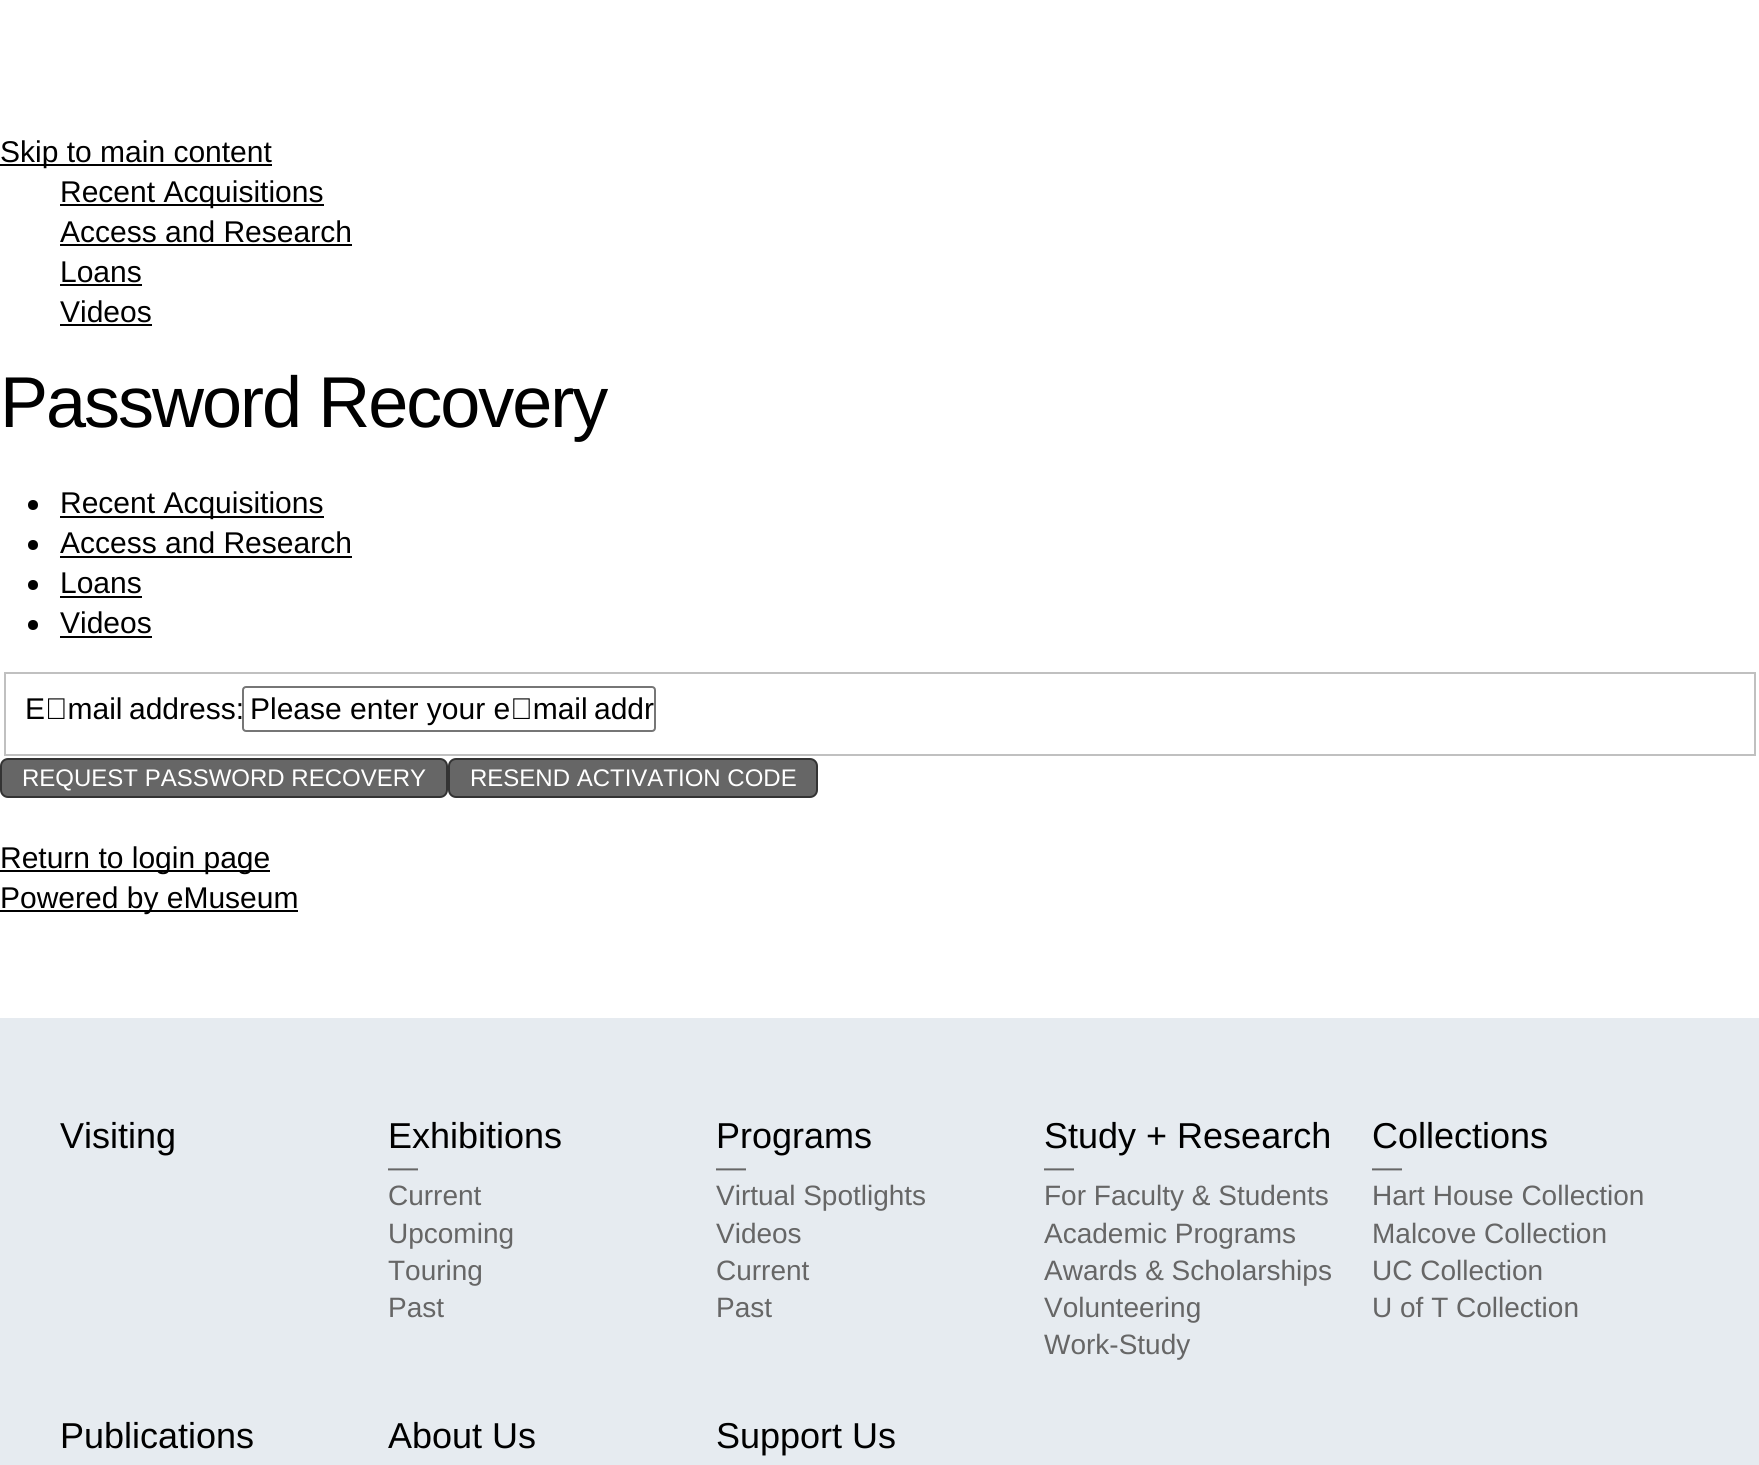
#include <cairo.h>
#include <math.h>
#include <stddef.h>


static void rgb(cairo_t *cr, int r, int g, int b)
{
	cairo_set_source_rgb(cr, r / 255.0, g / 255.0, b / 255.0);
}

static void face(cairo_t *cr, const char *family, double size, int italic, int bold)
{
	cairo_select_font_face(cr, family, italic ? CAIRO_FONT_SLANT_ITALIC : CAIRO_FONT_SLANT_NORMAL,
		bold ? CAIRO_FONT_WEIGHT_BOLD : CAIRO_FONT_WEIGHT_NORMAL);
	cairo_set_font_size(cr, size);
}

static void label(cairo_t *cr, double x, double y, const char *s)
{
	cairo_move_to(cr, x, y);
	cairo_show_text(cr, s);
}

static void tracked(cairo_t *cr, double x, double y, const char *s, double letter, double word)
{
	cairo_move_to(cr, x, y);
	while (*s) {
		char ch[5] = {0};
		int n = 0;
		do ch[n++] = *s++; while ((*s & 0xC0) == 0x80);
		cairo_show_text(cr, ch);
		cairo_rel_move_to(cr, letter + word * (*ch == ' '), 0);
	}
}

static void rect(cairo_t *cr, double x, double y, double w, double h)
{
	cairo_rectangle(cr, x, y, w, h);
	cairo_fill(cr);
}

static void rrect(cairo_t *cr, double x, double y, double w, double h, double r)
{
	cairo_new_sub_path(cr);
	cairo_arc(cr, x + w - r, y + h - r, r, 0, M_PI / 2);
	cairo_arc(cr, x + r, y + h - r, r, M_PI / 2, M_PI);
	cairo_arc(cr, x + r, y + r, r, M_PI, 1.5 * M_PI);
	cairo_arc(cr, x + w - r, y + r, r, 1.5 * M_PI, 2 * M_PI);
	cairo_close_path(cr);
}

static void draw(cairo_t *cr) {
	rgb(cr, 255, 255, 255);
	cairo_paint(cr);
	rgb(cr, 0, 0, 0);
	rect(cr, 0, 164, 272, 2);
	face(cr, "Liberation Sans", 30, 0, 0);
	label(cr, 0, 162, "Skip to main content");
	rect(cr, 60, 204, 264, 2);
	label(cr, 60, 202, "Recent Acquisitions");
	label(cr, 60, 242, "Access and Research");
	rect(cr, 60, 244, 292, 2);
	label(cr, 60, 282, "Loans");
	rect(cr, 60, 284, 82, 2);
	label(cr, 60, 322, "Videos");
	rect(cr, 60, 324, 92, 2);
	face(cr, "Liberation Sans", 72, 0, 0);
	tracked(cr, 0, 427, "Password Recovery", -2, 0);
	cairo_new_path(cr);
	cairo_arc(cr, 33, 505, 5, 0, 2 * M_PI);
	cairo_fill(cr);
	rect(cr, 60, 516, 264, 2);
	face(cr, "Liberation Sans", 30, 0, 0);
	label(cr, 60, 513, "Recent Acquisitions");
	cairo_new_path(cr);
	cairo_arc(cr, 33, 545, 5, 0, 2 * M_PI);
	cairo_fill(cr);
	label(cr, 60, 553, "Access and Research");
	rect(cr, 60, 556, 292, 2);
	cairo_new_path(cr);
	cairo_arc(cr, 33, 585, 5, 0, 2 * M_PI);
	cairo_fill(cr);
	label(cr, 60, 593, "Loans");
	rect(cr, 60, 596, 82, 2);
	cairo_new_path(cr);
	cairo_arc(cr, 33, 625, 5, 0, 2 * M_PI);
	cairo_fill(cr);
	label(cr, 60, 633, "Videos");
	rect(cr, 60, 636, 92, 2);
	cairo_rectangle(cr, 5, 673, 1750, 82);
	rgb(cr, 192, 192, 192);
	cairo_stroke(cr);
	rgb(cr, 0, 0, 0);
	label(cr, 25, 719, "E‑mail");
	label(cr, 129, 719, "address:");
	rrect(cr, 243, 687, 412, 44, 3);
	rgb(cr, 118, 118, 118);
	cairo_stroke(cr);
	rgb(cr, 0, 0, 0);
	label(cr, 250, 719, "Please enter your e‑mail");
	label(cr, 594, 719, "addr");
	rgb(cr, 102, 102, 102);
	rrect(cr, 1, 759, 446, 38, 7);
	cairo_fill_preserve(cr);
	rgb(cr, 51, 51, 51);
	cairo_stroke(cr);
	face(cr, "Liberation Sans", 24, 0, 0);
	rgb(cr, 255, 255, 255);
	label(cr, 22, 786, "REQUEST PASSWORD RECOVERY");
	rgb(cr, 102, 102, 102);
	rrect(cr, 449, 759, 368, 38, 7);
	cairo_fill_preserve(cr);
	rgb(cr, 51, 51, 51);
	cairo_stroke(cr);
	rgb(cr, 255, 255, 255);
	label(cr, 470, 786, "RESEND ACTIVATION CODE");
	rgb(cr, 0, 0, 0);
	rect(cr, 0, 870, 270, 2);
	face(cr, "Liberation Sans", 30, 0, 0);
	label(cr, 0, 868, "Return to login page");
	rect(cr, 0, 910, 298, 2);
	label(cr, 0, 908, "Powered by eMuseum");
	rgb(cr, 230, 235, 240);
	rect(cr, 0, 1018, 1759, 447);
	face(cr, "Liberation Sans", 36, 0, 0);
	rgb(cr, 0, 0, 0);
	label(cr, 60, 1148, "Visiting");
	label(cr, 388, 1148, "Exhibitions");
	face(cr, "Liberation Sans", 30, 0, 0);
	rgb(cr, 102, 102, 102);
	label(cr, 388, 1177, "—");
	face(cr, "Liberation Sans", 28, 0, 0);
	label(cr, 388, 1205, "Current");
	label(cr, 388, 1243, "Upcoming");
	label(cr, 388, 1280, "Touring");
	label(cr, 388, 1317, "Past");
	face(cr, "Liberation Sans", 36, 0, 0);
	rgb(cr, 0, 0, 0);
	label(cr, 716, 1148, "Programs");
	face(cr, "Liberation Sans", 30, 0, 0);
	rgb(cr, 102, 102, 102);
	label(cr, 716, 1177, "—");
	face(cr, "Liberation Sans", 28, 0, 0);
	label(cr, 716, 1205, "Virtual Spotlights");
	label(cr, 716, 1243, "Videos");
	label(cr, 716, 1280, "Current");
	label(cr, 716, 1317, "Past");
	face(cr, "Liberation Sans", 36, 0, 0);
	rgb(cr, 0, 0, 0);
	label(cr, 1044, 1148, "Study + Research");
	face(cr, "Liberation Sans", 30, 0, 0);
	rgb(cr, 102, 102, 102);
	label(cr, 1044, 1177, "—");
	face(cr, "Liberation Sans", 28, 0, 0);
	label(cr, 1044, 1205, "For Faculty & Students");
	label(cr, 1044, 1243, "Academic Programs");
	label(cr, 1044, 1280, "Awards & Scholarships");
	label(cr, 1044, 1317, "Volunteering");
	label(cr, 1044, 1354, "Work-Study");
	face(cr, "Liberation Sans", 36, 0, 0);
	rgb(cr, 0, 0, 0);
	label(cr, 1372, 1148, "Collections");
	face(cr, "Liberation Sans", 30, 0, 0);
	rgb(cr, 102, 102, 102);
	label(cr, 1372, 1177, "—");
	face(cr, "Liberation Sans", 28, 0, 0);
	label(cr, 1372, 1205, "Hart House Collection");
	label(cr, 1372, 1243, "Malcove Collection");
	label(cr, 1372, 1280, "UC Collection");
	label(cr, 1372, 1317, "U of T Collection");
	face(cr, "Liberation Sans", 36, 0, 0);
	rgb(cr, 0, 0, 0);
	label(cr, 60, 1448, "Publications");
	label(cr, 388, 1448, "About Us");
	label(cr, 716, 1448, "Support Us");
}

int main(void) {
	cairo_surface_t *surface = cairo_image_surface_create(CAIRO_FORMAT_RGB24, 1759, 1465);
	cairo_t *cr = cairo_create(surface);
	cairo_font_options_t *options = cairo_font_options_create();
	cairo_font_options_set_hint_metrics(options, CAIRO_HINT_METRICS_OFF);
	cairo_font_options_set_hint_style(options, CAIRO_HINT_STYLE_NONE);
	cairo_set_font_options(cr, options);
	cairo_set_miter_limit(cr, 4);
	draw(cr);
	cairo_surface_write_to_png(surface, "render.png");
	cairo_font_options_destroy(options);
	cairo_destroy(cr);
	cairo_surface_destroy(surface);
	return 0;
}
